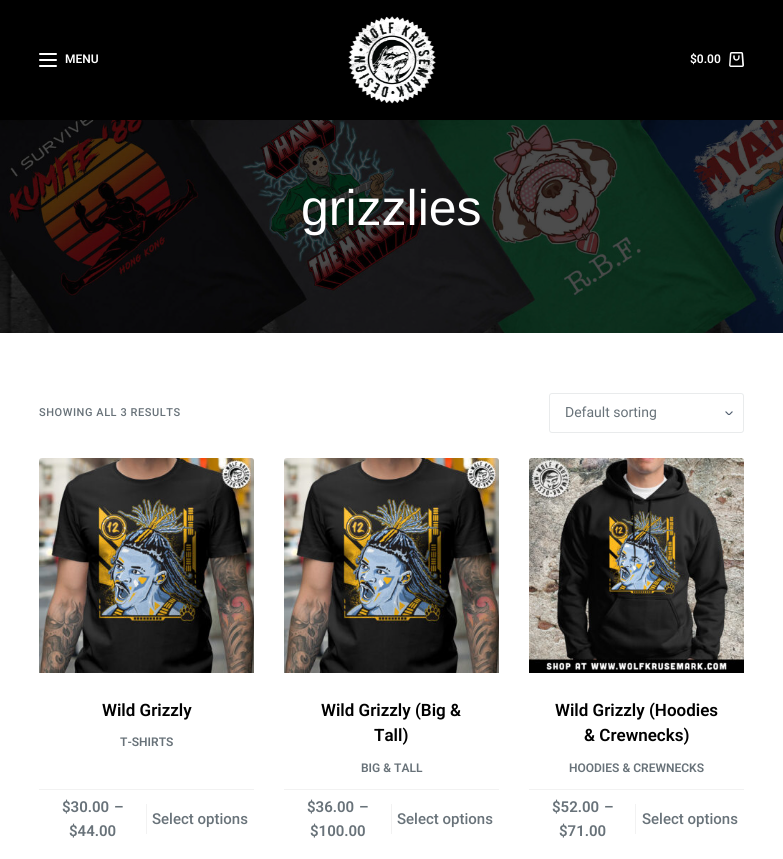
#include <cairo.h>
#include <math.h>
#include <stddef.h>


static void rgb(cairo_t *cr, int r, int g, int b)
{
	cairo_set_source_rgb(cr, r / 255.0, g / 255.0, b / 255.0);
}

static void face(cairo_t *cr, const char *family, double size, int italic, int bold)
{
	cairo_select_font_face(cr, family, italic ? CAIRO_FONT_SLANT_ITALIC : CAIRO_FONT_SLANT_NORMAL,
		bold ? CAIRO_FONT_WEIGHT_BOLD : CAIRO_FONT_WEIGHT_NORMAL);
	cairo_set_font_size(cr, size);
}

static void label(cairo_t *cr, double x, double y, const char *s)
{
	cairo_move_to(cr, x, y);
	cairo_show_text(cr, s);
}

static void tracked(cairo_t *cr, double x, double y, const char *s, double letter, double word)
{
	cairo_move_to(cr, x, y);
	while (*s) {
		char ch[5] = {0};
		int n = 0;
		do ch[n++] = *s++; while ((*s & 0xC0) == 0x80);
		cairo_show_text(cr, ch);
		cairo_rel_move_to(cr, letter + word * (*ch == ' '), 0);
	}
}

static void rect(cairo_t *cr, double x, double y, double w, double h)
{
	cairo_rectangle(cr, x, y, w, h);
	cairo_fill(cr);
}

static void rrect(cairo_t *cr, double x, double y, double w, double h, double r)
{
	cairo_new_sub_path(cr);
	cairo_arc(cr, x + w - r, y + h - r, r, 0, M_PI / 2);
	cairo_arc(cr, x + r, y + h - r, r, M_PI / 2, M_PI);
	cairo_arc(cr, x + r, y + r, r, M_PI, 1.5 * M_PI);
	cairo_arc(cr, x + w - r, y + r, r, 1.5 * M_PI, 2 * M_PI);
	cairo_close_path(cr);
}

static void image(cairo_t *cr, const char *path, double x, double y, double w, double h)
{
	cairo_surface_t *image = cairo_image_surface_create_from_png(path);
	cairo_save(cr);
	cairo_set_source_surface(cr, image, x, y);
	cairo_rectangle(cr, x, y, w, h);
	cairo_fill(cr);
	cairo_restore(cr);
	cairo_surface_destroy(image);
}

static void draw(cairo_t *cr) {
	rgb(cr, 255, 255, 255);
	cairo_paint(cr);
	rgb(cr, 0, 0, 0);
	rect(cr, 0, 0, 783, 120);
	rgb(cr, 255, 255, 255);
	rrect(cr, 39, 53, 18, 2, 1);
	cairo_fill(cr);
	rrect(cr, 39, 59, 18, 2, 1);
	cairo_fill(cr);
	rrect(cr, 39, 65, 18, 2, 1);
	cairo_fill(cr);
	face(cr, "Roboto SemiBold", 12, 0, 0);
	label(cr, 65, 63, "MENU");
	image(cr, "image0.png", 348, 16, 88, 88);
	label(cr, 690, 63, "$0.00");
	image(cr, "image1.png", 729, 52, 15, 15);
	image(cr, "image2.png", 0, 120, 783, 213);
	face(cr, "Liberation Sans", 50, 0, 0);
	label(cr, 301, 225, "grizzlies");
	face(cr, "Roboto Medium", 11, 0, 0);
	rgb(cr, 104, 114, 121);
	tracked(cr, 39, 416, "SHOWING ALL 3 RESULTS", 0.55, 0);
	image(cr, "image3.png", 725, 411, 8, 4);
	rrect(cr, 549.5, 393.5, 194, 39, 2.5);
	rgb(cr, 233, 235, 236);
	cairo_set_line_width(cr, 1);
	cairo_stroke(cr);
	face(cr, "Roboto", 14, 0, 0);
	rgb(cr, 104, 114, 121);
	label(cr, 565, 417, "Default sorting");
	image(cr, "image4.png", 39, 458, 215, 215);
	face(cr, "Roboto SemiBold", 17, 0, 0);
	rgb(cr, 0, 0, 0);
	label(cr, 102, 716, "Wild Grizzly");
	face(cr, "Roboto SemiBold", 12, 0, 0);
	rgb(cr, 104, 114, 121);
	label(cr, 120, 746, "T-SHIRTS");
	rgb(cr, 242, 242, 242);
	rect(cr, 39, 789, 215, 1);
	face(cr, "Roboto SemiBold", 15, 0, 0);
	rgb(cr, 104, 114, 121);
	label(cr, 62, 812, "$30.00");
	label(cr, 114, 812, "–");
	rgb(cr, 242, 242, 242);
	rect(cr, 146, 804, 1, 30);
	rgb(cr, 104, 114, 121);
	label(cr, 69, 836, "$44.00");
	face(cr, "Roboto Medium", 15, 0, 0);
	label(cr, 152, 824, "Select options");
	image(cr, "image4.png", 284, 458, 215, 215);
	face(cr, "Roboto SemiBold", 17, 0, 0);
	rgb(cr, 0, 0, 0);
	label(cr, 321, 716, "Wild Grizzly (Big &");
	label(cr, 374, 741, "Tall)");
	face(cr, "Roboto SemiBold", 12, 0, 0);
	rgb(cr, 104, 114, 121);
	label(cr, 361, 772, "BIG & TALL");
	rgb(cr, 242, 242, 242);
	rect(cr, 284, 789, 215, 1);
	face(cr, "Roboto SemiBold", 15, 0, 0);
	rgb(cr, 104, 114, 121);
	label(cr, 307, 812, "$36.00");
	label(cr, 359, 812, "–");
	rgb(cr, 242, 242, 242);
	rect(cr, 391, 804, 1, 30);
	rgb(cr, 104, 114, 121);
	label(cr, 310, 836, "$100.00");
	face(cr, "Roboto Medium", 15, 0, 0);
	label(cr, 397, 824, "Select options");
	image(cr, "image5.png", 529, 458, 215, 215);
	face(cr, "Roboto SemiBold", 17, 0, 0);
	rgb(cr, 0, 0, 0);
	label(cr, 555, 716, "Wild Grizzly (Hoodies");
	label(cr, 584, 741, "& Crewnecks)");
	face(cr, "Roboto SemiBold", 12, 0, 0);
	rgb(cr, 104, 114, 121);
	label(cr, 569, 772, "HOODIES & CREWNECKS");
	rgb(cr, 242, 242, 242);
	rect(cr, 529, 789, 215, 1);
	face(cr, "Roboto SemiBold", 15, 0, 0);
	rgb(cr, 104, 114, 121);
	label(cr, 552, 812, "$52.00");
	label(cr, 604, 812, "–");
	rgb(cr, 242, 242, 242);
	rect(cr, 635, 804, 1, 30);
	rgb(cr, 104, 114, 121);
	label(cr, 559, 836, "$71.00");
	face(cr, "Roboto Medium", 15, 0, 0);
	label(cr, 642, 824, "Select options");
}

int main(void) {
	cairo_surface_t *surface = cairo_image_surface_create(CAIRO_FORMAT_RGB24, 783, 859);
	cairo_t *cr = cairo_create(surface);
	cairo_font_options_t *options = cairo_font_options_create();
	cairo_font_options_set_hint_metrics(options, CAIRO_HINT_METRICS_OFF);
	cairo_font_options_set_hint_style(options, CAIRO_HINT_STYLE_NONE);
	cairo_set_font_options(cr, options);
	cairo_set_miter_limit(cr, 4);
	draw(cr);
	cairo_surface_write_to_png(surface, "render.png");
	cairo_font_options_destroy(options);
	cairo_destroy(cr);
	cairo_surface_destroy(surface);
	return 0;
}
